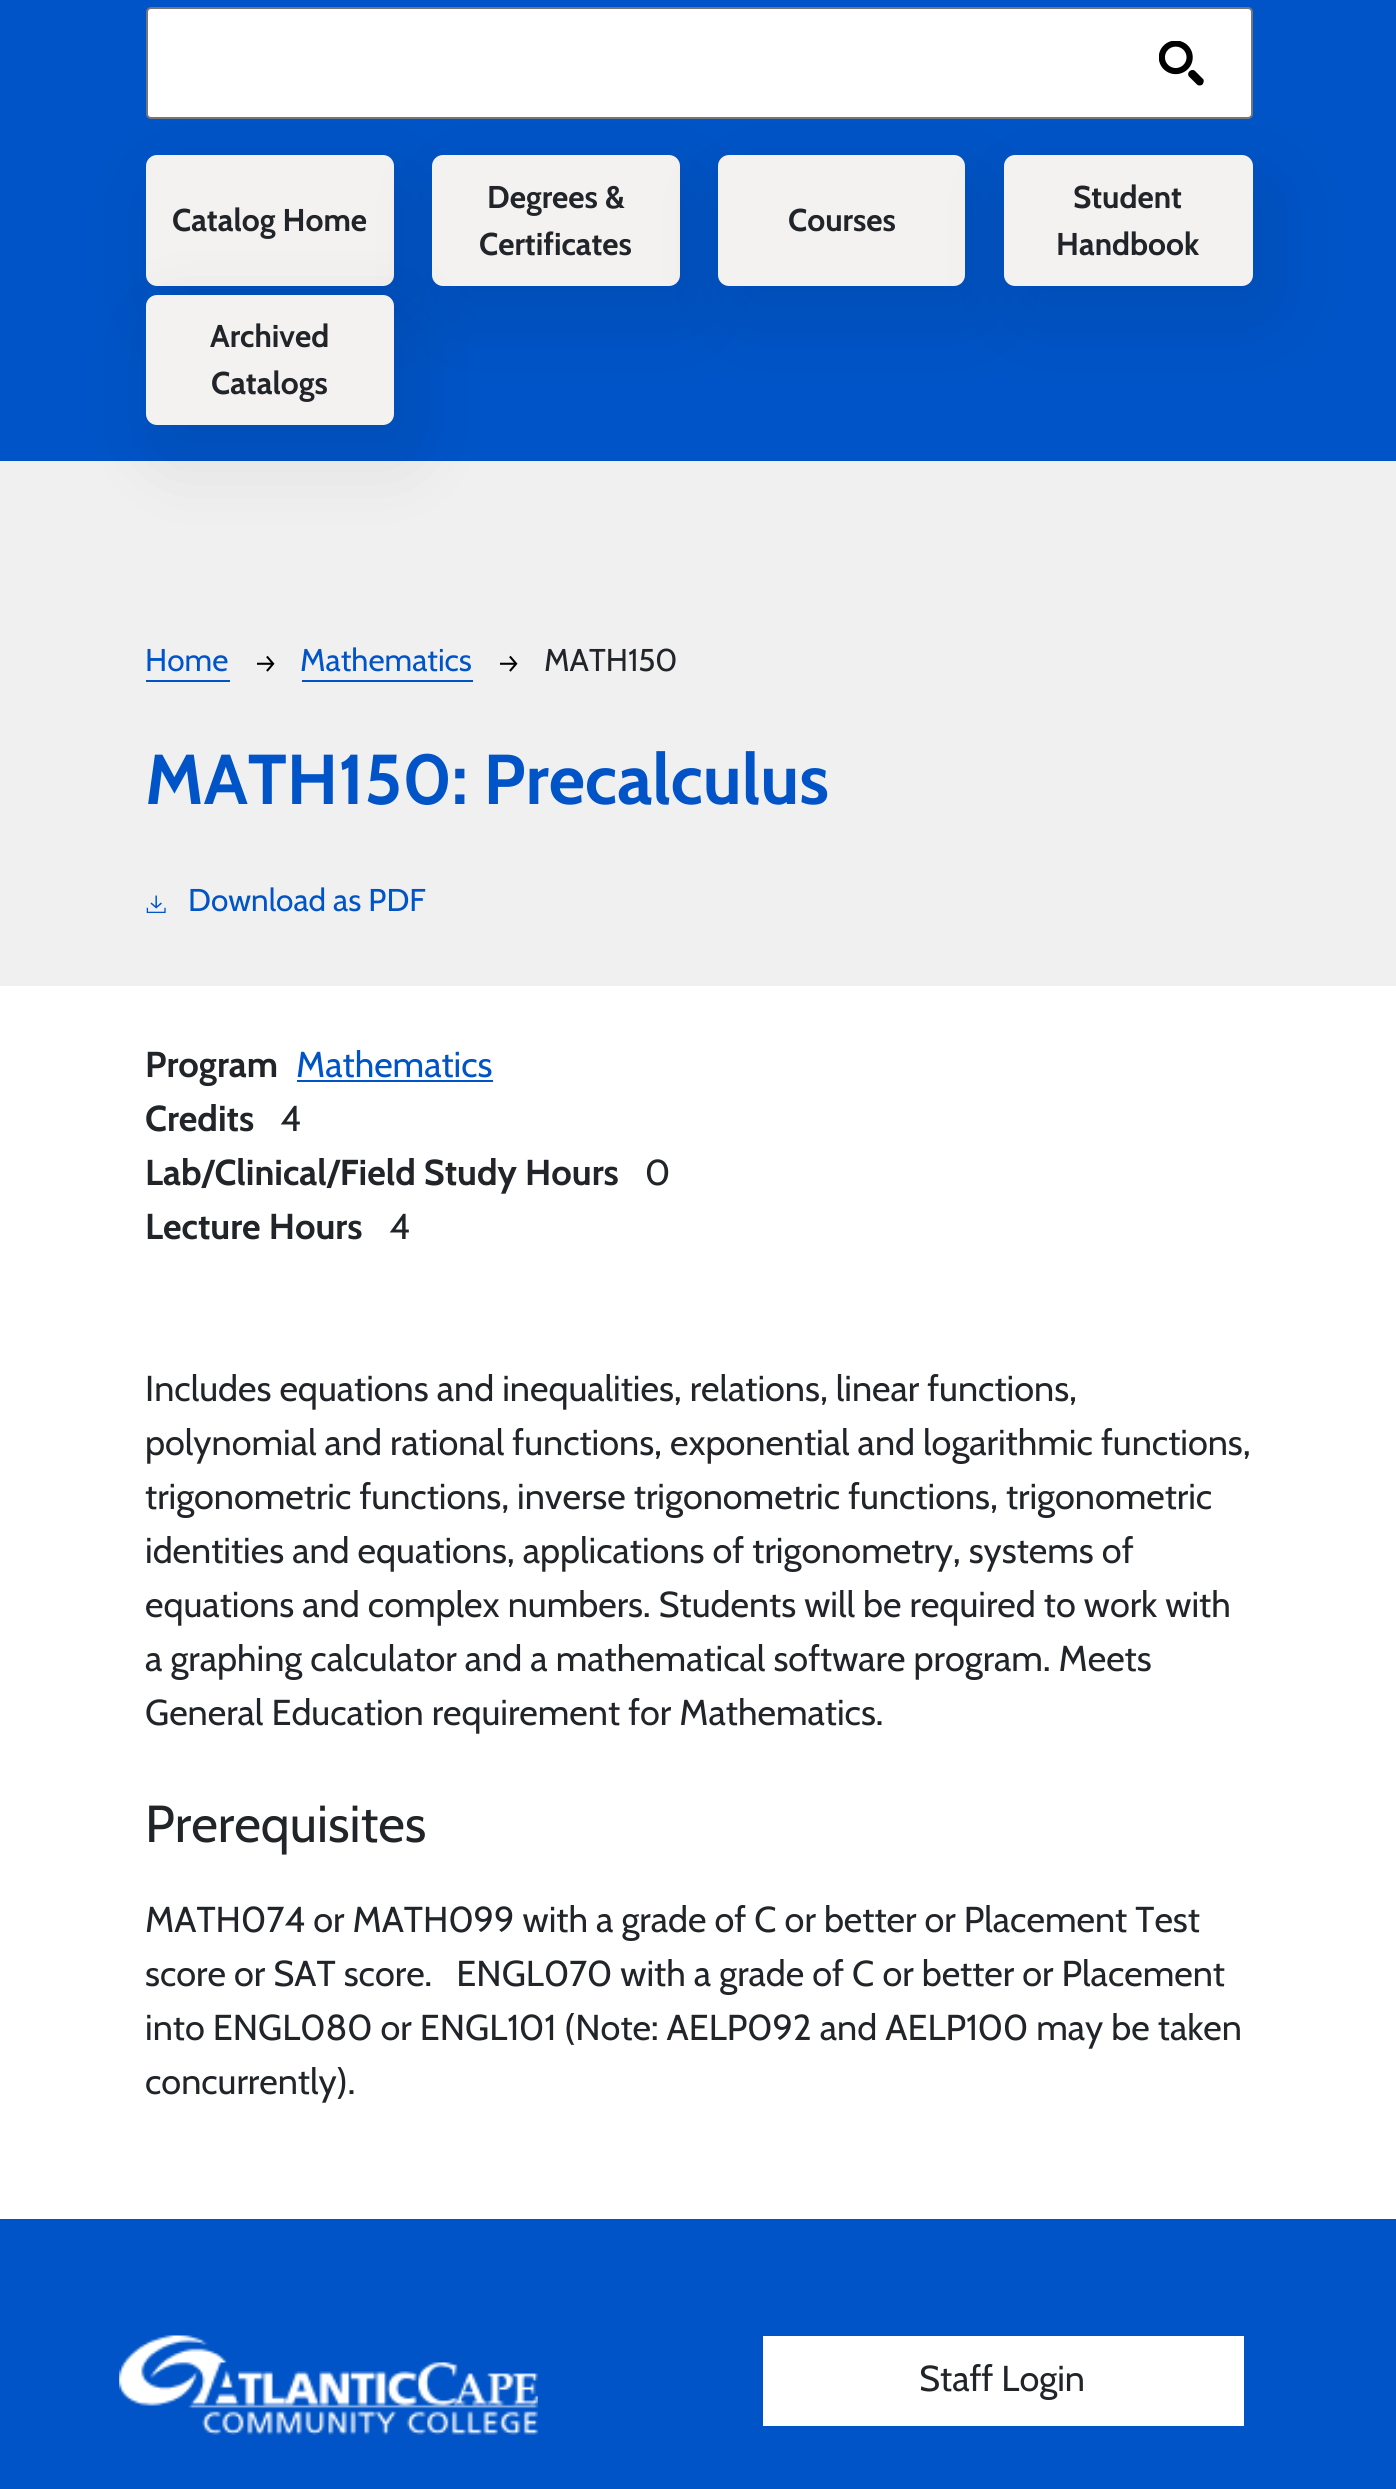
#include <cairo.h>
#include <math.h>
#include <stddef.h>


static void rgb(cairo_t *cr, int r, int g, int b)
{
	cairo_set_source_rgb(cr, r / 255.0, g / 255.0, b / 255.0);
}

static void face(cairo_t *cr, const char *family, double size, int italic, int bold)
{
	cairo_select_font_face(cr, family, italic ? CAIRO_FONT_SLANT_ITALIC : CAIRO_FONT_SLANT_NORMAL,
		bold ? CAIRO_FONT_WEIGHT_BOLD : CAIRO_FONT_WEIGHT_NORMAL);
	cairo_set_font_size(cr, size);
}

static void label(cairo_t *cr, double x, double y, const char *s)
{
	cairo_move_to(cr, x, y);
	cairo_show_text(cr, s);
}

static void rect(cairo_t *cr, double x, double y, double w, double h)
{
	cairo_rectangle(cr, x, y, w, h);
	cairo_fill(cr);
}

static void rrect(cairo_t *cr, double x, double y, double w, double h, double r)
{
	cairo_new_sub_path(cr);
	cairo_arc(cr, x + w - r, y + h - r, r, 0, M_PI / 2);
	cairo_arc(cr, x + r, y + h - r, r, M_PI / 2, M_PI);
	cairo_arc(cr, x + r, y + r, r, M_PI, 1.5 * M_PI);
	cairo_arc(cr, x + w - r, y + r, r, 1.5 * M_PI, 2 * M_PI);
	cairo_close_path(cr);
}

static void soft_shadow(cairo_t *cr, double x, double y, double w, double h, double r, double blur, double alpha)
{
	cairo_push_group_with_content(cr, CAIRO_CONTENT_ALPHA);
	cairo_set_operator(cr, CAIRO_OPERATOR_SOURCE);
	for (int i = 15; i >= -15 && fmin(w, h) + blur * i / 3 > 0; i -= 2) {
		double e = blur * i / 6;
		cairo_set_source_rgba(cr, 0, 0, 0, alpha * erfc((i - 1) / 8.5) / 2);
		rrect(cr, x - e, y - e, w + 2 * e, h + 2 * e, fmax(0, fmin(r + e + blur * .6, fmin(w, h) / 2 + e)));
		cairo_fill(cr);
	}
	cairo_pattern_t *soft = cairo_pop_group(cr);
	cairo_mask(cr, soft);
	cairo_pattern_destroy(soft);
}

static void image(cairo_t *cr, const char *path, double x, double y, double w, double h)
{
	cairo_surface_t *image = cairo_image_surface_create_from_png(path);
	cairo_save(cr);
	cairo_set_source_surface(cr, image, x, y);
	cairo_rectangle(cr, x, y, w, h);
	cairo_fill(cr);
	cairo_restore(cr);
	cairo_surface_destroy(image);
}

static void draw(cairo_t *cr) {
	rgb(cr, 255, 255, 255);
	cairo_paint(cr);
	rgb(cr, 0, 84, 199);
	rect(cr, 0, 0, 1396, 461);
	rgb(cr, 0, 0, 0);
	soft_shadow(cr, 162, 182, 248, 131, 11, 39.5, 0.1);
	rgb(cr, 243, 242, 240);
	rrect(cr, 146, 155, 248, 131, 11);
	cairo_fill(cr);
	rgb(cr, 0, 0, 0);
	soft_shadow(cr, 448, 182, 247, 131, 11, 39.5, 0.1);
	rgb(cr, 243, 242, 240);
	rrect(cr, 432, 155, 248, 131, 11);
	cairo_fill(cr);
	rgb(cr, 0, 0, 0);
	soft_shadow(cr, 734, 182, 247, 131, 11, 39.5, 0.1);
	rgb(cr, 243, 242, 240);
	rrect(cr, 718, 155, 247, 131, 11);
	cairo_fill(cr);
	rgb(cr, 0, 0, 0);
	soft_shadow(cr, 1019, 182, 250, 131, 11, 39.5, 0.1);
	rgb(cr, 255, 255, 255);
	rrect(cr, 147, 8, 1105, 110, 4);
	cairo_fill_preserve(cr);
	rgb(cr, 118, 118, 118);
	cairo_stroke(cr);
	image(cr, "image0.png", 1159, 41, 45, 45);
	face(cr, "Cabin", 31.5, 0, 1);
	rgb(cr, 33, 37, 41);
	label(cr, 172, 231, "Catalog Home");
	label(cr, 487, 208, "Degrees &");
	label(cr, 479, 255, "Certificates");
	label(cr, 788, 231, "Courses");
	rgb(cr, 243, 242, 240);
	rrect(cr, 1004, 155, 249, 131, 11);
	cairo_fill(cr);
	rgb(cr, 33, 37, 41);
	label(cr, 1073, 208, "Student");
	label(cr, 1056, 255, "Handbook");
	rgb(cr, 240, 240, 240);
	rect(cr, 0, 461, 1396, 525);
	rgb(cr, 0, 0, 0);
	soft_shadow(cr, 162, 322, 248, 130, 11, 39.5, 0.1);
	rgb(cr, 243, 242, 240);
	rrect(cr, 146, 295, 248, 130, 11);
	cairo_fill(cr);
	rgb(cr, 33, 37, 41);
	label(cr, 210, 347, "Archived");
	label(cr, 211, 394, "Catalogs");
	face(cr, "Cabin", 31.5, 0, 0);
	rgb(cr, 0, 84, 199);
	label(cr, 145, 671, "Home");
	rect(cr, 146, 680, 84, 2);
	image(cr, "image1.png", 257, 655, 18, 17);
	label(cr, 300, 671, "Mathematics");
	rect(cr, 302, 680, 171, 2);
	image(cr, "image1.png", 500, 655, 18, 17);
	rgb(cr, 33, 37, 41);
	label(cr, 544, 671, "MATH150");
	face(cr, "Cabin", 70.5, 0, 1);
	rgb(cr, 0, 84, 199);
	label(cr, 145, 804, "MATH150: Precalculus");
	image(cr, "image2.png", 146, 895, 20, 19);
	face(cr, "Cabin", 31.5, 0, 0);
	label(cr, 188, 911, "Download as PDF");
	face(cr, "Cabin", 36, 0, 1);
	rgb(cr, 33, 37, 41);
	label(cr, 145, 1077, "Program");
	face(cr, "Cabin", 36, 0, 0);
	rgb(cr, 0, 84, 199);
	label(cr, 296, 1077, "Mathematics");
	rect(cr, 297, 1080, 196, 2);
	face(cr, "Cabin", 36, 0, 1);
	rgb(cr, 33, 37, 41);
	label(cr, 145, 1131, "Credits");
	face(cr, "Cabin", 36, 0, 0);
	label(cr, 280, 1131, "4");
	face(cr, "Cabin", 36, 0, 1);
	label(cr, 145, 1185, "Lab/Clinical/Field Study Hours");
	face(cr, "Cabin", 36, 0, 0);
	label(cr, 645, 1185, "0");
	face(cr, "Cabin", 36, 0, 1);
	label(cr, 145, 1239, "Lecture Hours");
	face(cr, "Cabin", 36, 0, 0);
	label(cr, 389, 1239, "4");
	label(cr, 145, 1401, "Includes equations and inequalities, relations, linear functions,");
	label(cr, 145, 1455, "polynomial and rational functions, exponential and logarithmic functions,");
	label(cr, 145, 1509, "trigonometric functions, inverse trigonometric functions, trigonometric");
	label(cr, 145, 1563, "identities and equations, applications of trigonometry, systems of");
	label(cr, 145, 1617, "equations and complex numbers. Students will be required to work with");
	label(cr, 145, 1671, "a graphing calculator and a mathematical software program. Meets");
	label(cr, 145, 1725, "General Education requirement for Mathematics.");
	face(cr, "Cabin", 52, 0, 0);
	label(cr, 145, 1842, "Prerequisites");
	face(cr, "Cabin", 36, 0, 0);
	label(cr, 145, 1932, "MATH074 or MATH099 with a grade of C or better or Placement Test");
	label(cr, 145, 1986, "score or SAT score.   ENGL070 with a grade of C or better or Placement");
	label(cr, 145, 2040, "into ENGL080 or ENGL101 (Note: AELP092 and AELP100 may be taken");
	label(cr, 145, 2094, "concurrently).");
	rgb(cr, 0, 84, 199);
	rect(cr, 0, 2219, 1396, 270);
	image(cr, "image3.png", 119, 2335, 419, 100);
	rgb(cr, 255, 255, 255);
	rect(cr, 763, 2336, 481, 90);
	rgb(cr, 33, 37, 41);
	label(cr, 919, 2391, "Staff Login");
}

int main(void) {
	cairo_surface_t *surface = cairo_image_surface_create(CAIRO_FORMAT_RGB24, 1396, 2489);
	cairo_t *cr = cairo_create(surface);
	cairo_font_options_t *options = cairo_font_options_create();
	cairo_font_options_set_hint_metrics(options, CAIRO_HINT_METRICS_OFF);
	cairo_font_options_set_hint_style(options, CAIRO_HINT_STYLE_NONE);
	cairo_set_font_options(cr, options);
	cairo_set_miter_limit(cr, 4);
	draw(cr);
	cairo_surface_write_to_png(surface, "render.png");
	cairo_font_options_destroy(options);
	cairo_destroy(cr);
	cairo_surface_destroy(surface);
	return 0;
}
